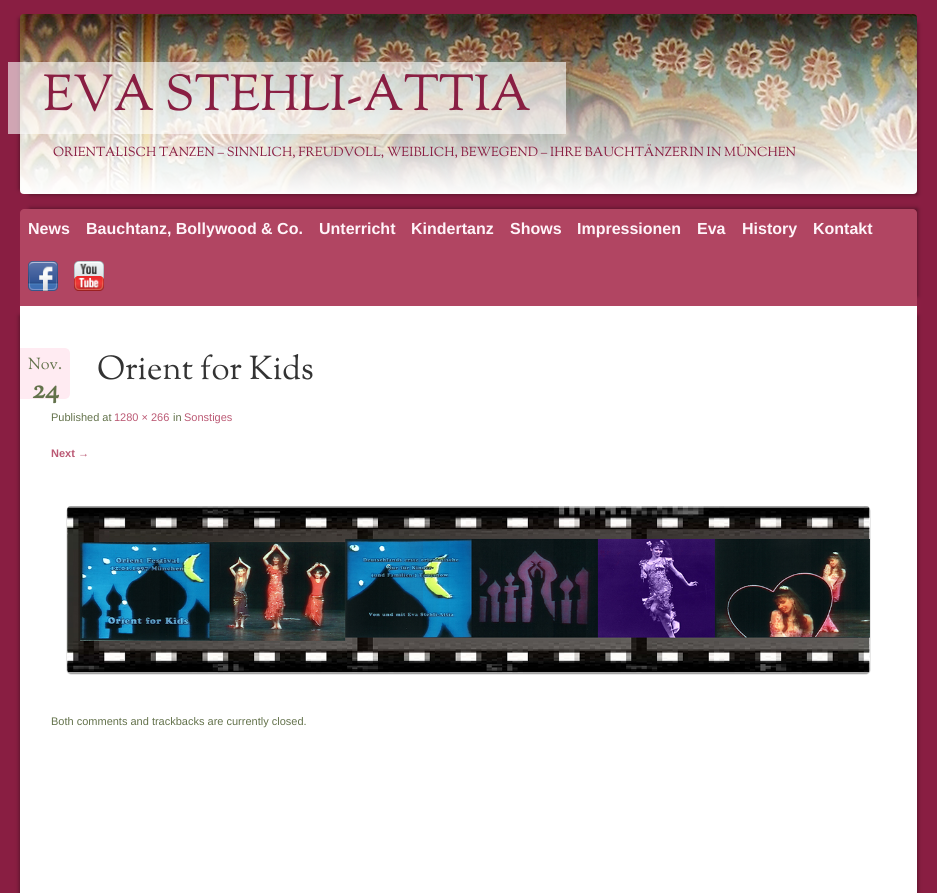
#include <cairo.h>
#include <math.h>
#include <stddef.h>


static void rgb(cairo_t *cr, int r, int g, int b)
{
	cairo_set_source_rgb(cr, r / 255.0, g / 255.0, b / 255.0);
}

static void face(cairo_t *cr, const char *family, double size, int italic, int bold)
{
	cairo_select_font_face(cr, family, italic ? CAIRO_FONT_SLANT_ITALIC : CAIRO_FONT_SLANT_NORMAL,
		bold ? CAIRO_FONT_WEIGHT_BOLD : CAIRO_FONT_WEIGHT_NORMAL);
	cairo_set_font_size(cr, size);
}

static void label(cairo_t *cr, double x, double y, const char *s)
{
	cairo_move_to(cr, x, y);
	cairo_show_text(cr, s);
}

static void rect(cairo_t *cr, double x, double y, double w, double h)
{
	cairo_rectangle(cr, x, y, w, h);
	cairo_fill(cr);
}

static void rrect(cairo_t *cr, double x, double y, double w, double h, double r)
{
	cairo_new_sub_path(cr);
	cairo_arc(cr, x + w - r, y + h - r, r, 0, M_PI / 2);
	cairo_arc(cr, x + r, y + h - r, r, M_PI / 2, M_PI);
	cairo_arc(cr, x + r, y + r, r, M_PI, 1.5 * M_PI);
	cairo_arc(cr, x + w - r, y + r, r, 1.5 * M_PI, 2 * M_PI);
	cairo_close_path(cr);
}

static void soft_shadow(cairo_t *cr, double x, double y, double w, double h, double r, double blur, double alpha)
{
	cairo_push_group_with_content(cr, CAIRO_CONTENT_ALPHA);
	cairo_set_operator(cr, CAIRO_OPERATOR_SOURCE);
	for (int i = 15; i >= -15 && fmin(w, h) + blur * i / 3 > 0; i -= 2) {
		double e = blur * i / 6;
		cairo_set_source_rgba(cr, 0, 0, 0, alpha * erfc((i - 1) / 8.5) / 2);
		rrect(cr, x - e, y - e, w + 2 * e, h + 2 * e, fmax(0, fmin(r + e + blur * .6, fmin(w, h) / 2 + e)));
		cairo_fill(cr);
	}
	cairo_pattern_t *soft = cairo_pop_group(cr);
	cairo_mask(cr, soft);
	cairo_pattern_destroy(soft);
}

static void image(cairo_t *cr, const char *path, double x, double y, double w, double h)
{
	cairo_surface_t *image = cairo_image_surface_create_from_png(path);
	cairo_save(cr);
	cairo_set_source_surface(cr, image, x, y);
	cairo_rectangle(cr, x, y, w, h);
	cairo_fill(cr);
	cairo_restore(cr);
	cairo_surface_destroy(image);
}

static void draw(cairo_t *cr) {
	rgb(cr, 137, 30, 66);
	cairo_paint(cr);
	rgb(cr, 0, 0, 0);
	soft_shadow(cr, 20, 19, 887, 170, 0, 2.5, 0.5);
	soft_shadow(cr, 30, 24, 887, 170, 0, 2.5, 0.5);
	image(cr, "image0.png", 20, 14, 897, 180);
	cairo_set_source_rgba(cr, 1, 1, 1, 0.6);
	rect(cr, 8, 62, 558, 72);
	face(cr, "Sorts Mill Goudy", 50, 0, 0);
	rgb(cr, 137, 30, 66);
	label(cr, 43, 110, "EVA STEHLI-ATTIA");
	face(cr, "Sorts Mill Goudy", 13, 0, 0);
	label(cr, 53, 156, "ORIENTALISCH TANZEN – SINNLICH, FREUDVOLL, WEIBLICH, BEWEGEND – IHRE BAUCHTÄNZERIN IN MÜNCHEN");
	rgb(cr, 0, 0, 0);
	soft_shadow(cr, 30, 209, 887, 87, 0, 2.5, 0.5);
	rgb(cr, 177, 69, 98);
	cairo_new_path(cr);
	cairo_move_to(cr, 24, 209);
	cairo_line_to(cr, 913, 209);
	cairo_curve_to(cr, 915, 209, 917, 211, 917, 213);
	cairo_line_to(cr, 917, 306);
	cairo_line_to(cr, 20, 306);
	cairo_line_to(cr, 20, 213);
	cairo_curve_to(cr, 20, 211, 22, 209, 24, 209);
	cairo_close_path(cr);
	cairo_fill(cr);
	face(cr, "Liberation Sans", 16, 0, 1);
	rgb(cr, 255, 244, 249);
	label(cr, 28, 234, "News");
	label(cr, 86, 234, "Bauchtanz, Bollywood & Co.");
	label(cr, 319, 234, "Unterricht");
	label(cr, 411, 234, "Kindertanz");
	label(cr, 510, 234, "Shows");
	label(cr, 577, 234, "Impressionen");
	label(cr, 697, 234, "Eva");
	label(cr, 742, 234, "History");
	label(cr, 813, 234, "Kontakt");
	image(cr, "image1.png", 28, 261, 30, 30);
	image(cr, "image2.png", 74, 261, 30, 30);
	rgb(cr, 0, 0, 0);
	soft_shadow(cr, 20, 316, 887, 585, 0, 2.5, 0.5);
	soft_shadow(cr, 30, 316, 887, 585, 0, 2.5, 0.5);
	rgb(cr, 255, 255, 255);
	rect(cr, 20, 306, 897, 587);
	rgb(cr, 255, 235, 242);
	cairo_new_path(cr);
	cairo_move_to(cr, 20, 348);
	cairo_line_to(cr, 65, 348);
	cairo_curve_to(cr, 68, 348, 70, 350, 70, 353);
	cairo_line_to(cr, 70, 394);
	cairo_curve_to(cr, 70, 397, 68, 399, 65, 399);
	cairo_line_to(cr, 20, 399);
	cairo_close_path(cr);
	cairo_fill(cr);
	rgb(cr, 255, 255, 255);
	cairo_set_fill_rule(cr, CAIRO_FILL_RULE_EVEN_ODD);
	cairo_new_path(cr);
	cairo_move_to(cr, 20, 343);
	cairo_line_to(cr, 65, 343);
	cairo_curve_to(cr, 71, 343, 75, 347, 75, 353);
	cairo_line_to(cr, 75, 394);
	cairo_curve_to(cr, 75, 400, 71, 404, 65, 404);
	cairo_line_to(cr, 20, 404);
	cairo_close_path(cr);
	cairo_move_to(cr, 20, 348);
	cairo_line_to(cr, 65, 348);
	cairo_curve_to(cr, 68, 348, 70, 350, 70, 353);
	cairo_line_to(cr, 70, 394);
	cairo_curve_to(cr, 70, 397, 68, 399, 65, 399);
	cairo_line_to(cr, 20, 399);
	cairo_close_path(cr);
	cairo_fill(cr);
	face(cr, "Sorts Mill Goudy", 16, 0, 0);
	rgb(cr, 99, 114, 75);
	label(cr, 28, 369, "Nov.");
	face(cr, "Sorts Mill Goudy", 28, 0, 1);
	label(cr, 32, 398, "24");
	face(cr, "Sorts Mill Goudy", 33, 0, 0);
	rgb(cr, 51, 51, 51);
	label(cr, 97, 379, "Orient for Kids");
	face(cr, "Liberation Sans", 11, 0, 0);
	rgb(cr, 99, 114, 75);
	label(cr, 51, 421, "Published at");
	rgb(cr, 187, 89, 116);
	label(cr, 114, 421, "1280 × 266");
	rgb(cr, 99, 114, 75);
	label(cr, 173, 421, "in");
	rgb(cr, 187, 89, 116);
	label(cr, 184, 421, "Sonstiges");
	face(cr, "Liberation Sans", 11, 0, 1);
	label(cr, 51, 457, "Next →");
	rgb(cr, 0, 0, 0);
	soft_shadow(cr, 67, 507, 803, 167, 4, 0.5, 0.4);
	image(cr, "image3.png", 67, 506, 803, 167);
	face(cr, "Liberation Sans", 11, 0, 0);
	rgb(cr, 99, 114, 75);
	label(cr, 51, 725, "Both comments and trackbacks are currently closed.");
}

int main(void) {
	cairo_surface_t *surface = cairo_image_surface_create(CAIRO_FORMAT_RGB24, 937, 893);
	cairo_t *cr = cairo_create(surface);
	cairo_font_options_t *options = cairo_font_options_create();
	cairo_font_options_set_hint_metrics(options, CAIRO_HINT_METRICS_OFF);
	cairo_font_options_set_hint_style(options, CAIRO_HINT_STYLE_NONE);
	cairo_set_font_options(cr, options);
	cairo_set_miter_limit(cr, 4);
	draw(cr);
	cairo_surface_write_to_png(surface, "render.png");
	cairo_font_options_destroy(options);
	cairo_destroy(cr);
	cairo_surface_destroy(surface);
	return 0;
}
